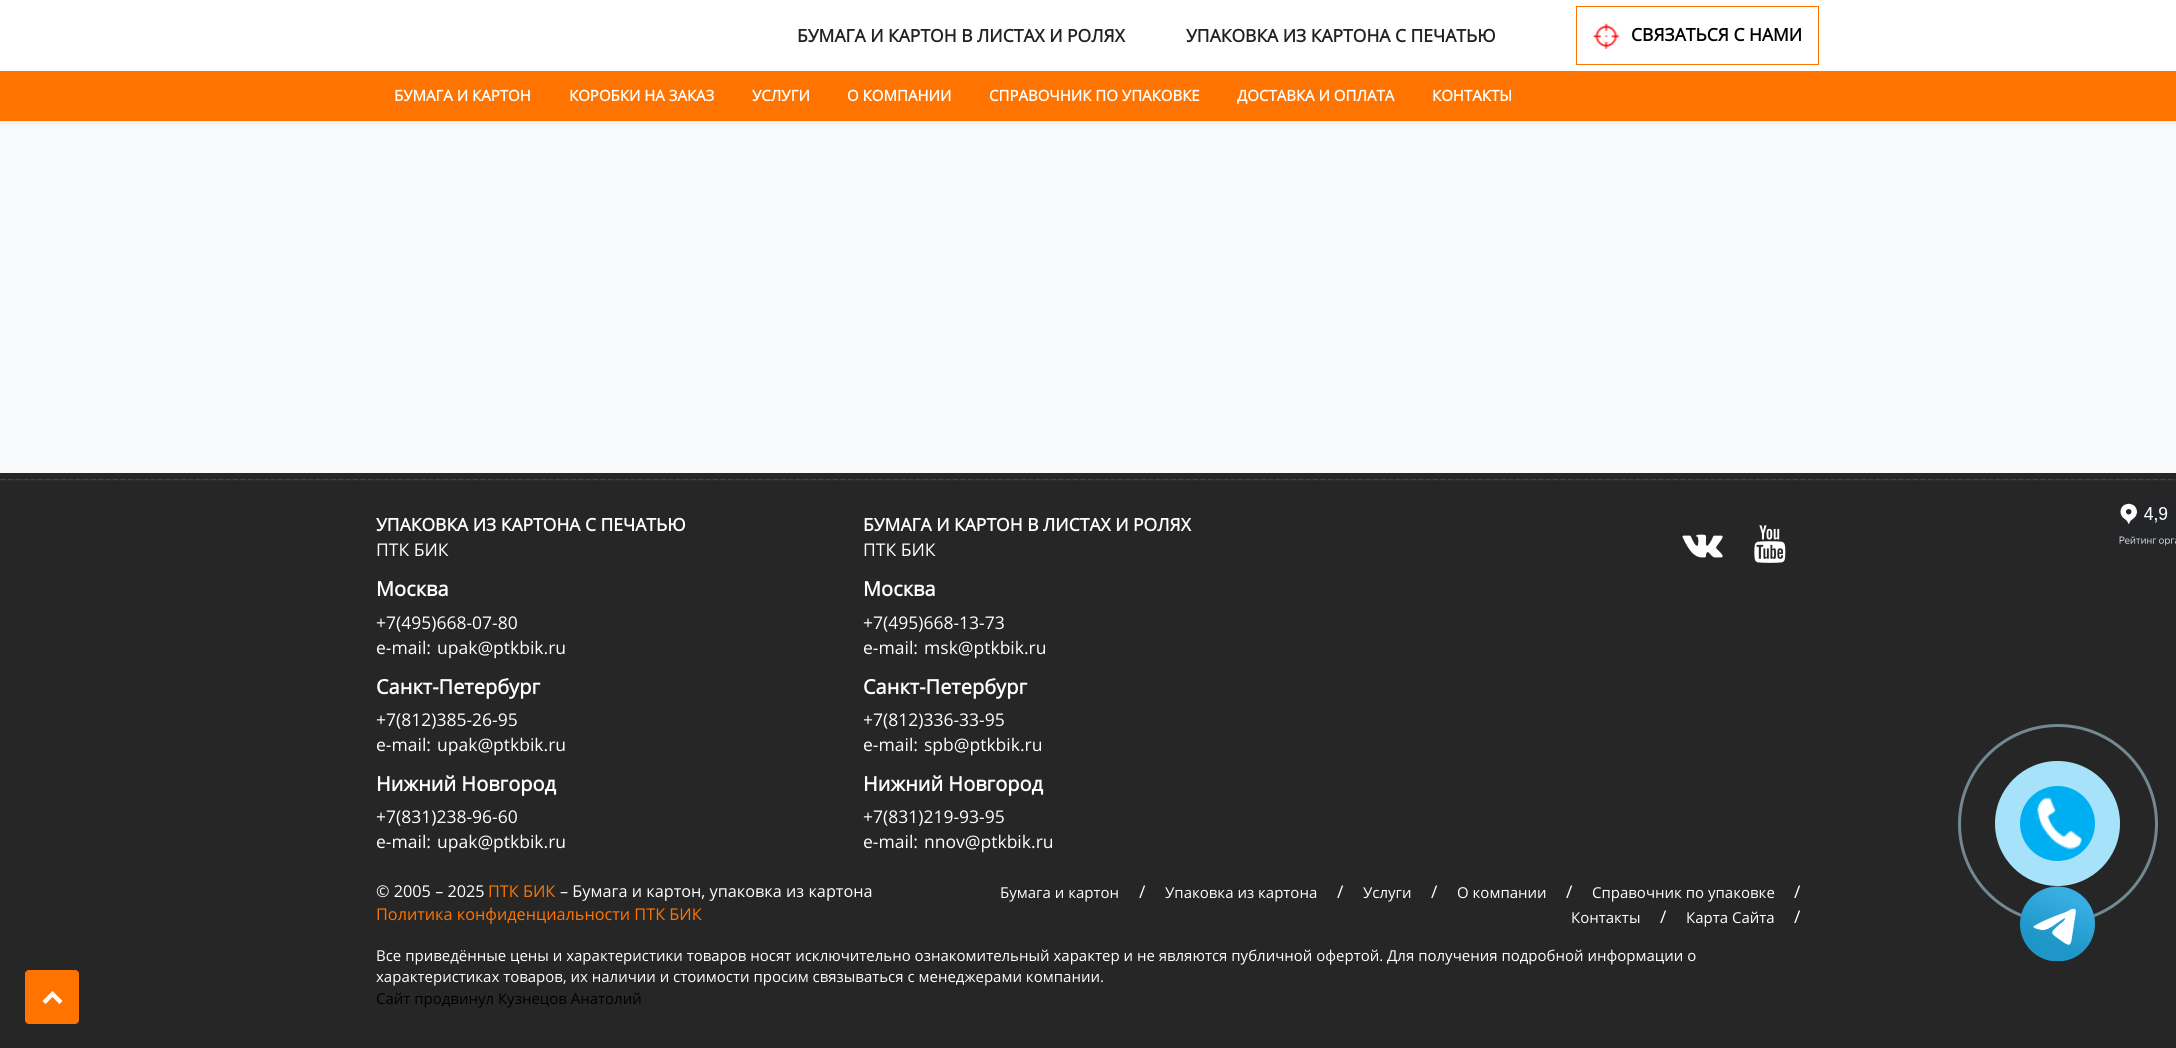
#include <cairo.h>
#include <math.h>
#include <stddef.h>


static void rgb(cairo_t *cr, int r, int g, int b)
{
	cairo_set_source_rgb(cr, r / 255.0, g / 255.0, b / 255.0);
}

static void face(cairo_t *cr, const char *family, double size, int italic, int bold)
{
	cairo_select_font_face(cr, family, italic ? CAIRO_FONT_SLANT_ITALIC : CAIRO_FONT_SLANT_NORMAL,
		bold ? CAIRO_FONT_WEIGHT_BOLD : CAIRO_FONT_WEIGHT_NORMAL);
	cairo_set_font_size(cr, size);
}

static void label(cairo_t *cr, double x, double y, const char *s)
{
	cairo_move_to(cr, x, y);
	cairo_show_text(cr, s);
}

static void rect(cairo_t *cr, double x, double y, double w, double h)
{
	cairo_rectangle(cr, x, y, w, h);
	cairo_fill(cr);
}

static void rrect(cairo_t *cr, double x, double y, double w, double h, double r)
{
	cairo_new_sub_path(cr);
	cairo_arc(cr, x + w - r, y + h - r, r, 0, M_PI / 2);
	cairo_arc(cr, x + r, y + h - r, r, M_PI / 2, M_PI);
	cairo_arc(cr, x + r, y + r, r, M_PI, 1.5 * M_PI);
	cairo_arc(cr, x + w - r, y + r, r, 1.5 * M_PI, 2 * M_PI);
	cairo_close_path(cr);
}

static void soft_shadow(cairo_t *cr, double x, double y, double w, double h, double r, double blur, double alpha)
{
	cairo_push_group_with_content(cr, CAIRO_CONTENT_ALPHA);
	cairo_set_operator(cr, CAIRO_OPERATOR_SOURCE);
	for (int i = 15; i >= -15 && fmin(w, h) + blur * i / 3 > 0; i -= 2) {
		double e = blur * i / 6;
		cairo_set_source_rgba(cr, 0, 0, 0, alpha * erfc((i - 1) / 8.5) / 2);
		rrect(cr, x - e, y - e, w + 2 * e, h + 2 * e, fmax(0, fmin(r + e + blur * .6, fmin(w, h) / 2 + e)));
		cairo_fill(cr);
	}
	cairo_pattern_t *soft = cairo_pop_group(cr);
	cairo_mask(cr, soft);
	cairo_pattern_destroy(soft);
}

static void image(cairo_t *cr, const char *path, double x, double y, double w, double h)
{
	cairo_surface_t *image = cairo_image_surface_create_from_png(path);
	cairo_save(cr);
	cairo_set_source_surface(cr, image, x, y);
	cairo_rectangle(cr, x, y, w, h);
	cairo_fill(cr);
	cairo_restore(cr);
	cairo_surface_destroy(image);
}

static void draw(cairo_t *cr) {
	cairo_pattern_t *gradient;
	rgb(cr, 249, 250, 252);
	cairo_paint(cr);
	rgb(cr, 0, 0, 0);
	soft_shadow(cr, 0, 1, 2176, 122, 0, 3, 0.07);
	rgb(cr, 255, 116, 0);
	rect(cr, 0, 71, 2176, 50);
	rgb(cr, 255, 255, 255);
	rect(cr, 0, 0, 2176, 71);
	face(cr, "Open Sans", 17.5, 0, 1);
	rgb(cr, 34, 34, 34);
	label(cr, 797, 42, "БУМАГА И КАРТОН В ЛИСТАХ И РОЛЯХ");
	label(cr, 1186, 42, "УПАКОВКА ИЗ КАРТОНА С ПЕЧАТЬЮ");
	cairo_rectangle(cr, 1576.5, 6.5, 242, 58);
	rgb(cr, 255, 116, 0);
	cairo_set_line_width(cr, 1);
	cairo_stroke(cr);
	image(cr, "image0.png", 1593, 23, 27, 26);
	rgb(cr, 0, 0, 0);
	label(cr, 1631, 41, "СВЯЗАТЬСЯ С НАМИ");
	face(cr, "Open Sans", 15, 0, 1);
	rgb(cr, 255, 255, 255);
	label(cr, 394, 101, "БУМАГА И КАРТОН");
	label(cr, 569, 101, "КОРОБКИ НА ЗАКАЗ");
	label(cr, 752, 101, "УСЛУГИ");
	label(cr, 847, 101, "О КОМПАНИИ");
	label(cr, 989, 101, "СПРАВОЧНИК ПО УПАКОВКЕ");
	label(cr, 1237, 101, "ДОСТАВКА И ОПЛАТА");
	label(cr, 1432, 101, "КОНТАКТЫ");
	rgb(cr, 38, 38, 38);
	rect(cr, 0, 473, 2176, 575);
	rgb(cr, 255, 116, 0);
	rrect(cr, 25, 970, 54, 54, 4);
	cairo_fill(cr);
	rgb(cr, 255, 255, 255);
	cairo_new_path(cr);
	cairo_move_to(cr, 52.5, 991);
	cairo_line_to(cr, 62.5, 1001);
	cairo_line_to(cr, 59.5, 1004);
	cairo_line_to(cr, 52.5, 997);
	cairo_line_to(cr, 45.5, 1004);
	cairo_line_to(cr, 42.5, 1001);
	cairo_close_path(cr);
	cairo_fill(cr);
	image(cr, "image1.png", 0, 479, 2176, 2);
	face(cr, "Open Sans", 17.5, 0, 1);
	label(cr, 376, 531, "УПАКОВКА ИЗ КАРТОНА С ПЕЧАТЬЮ");
	face(cr, "Open Sans", 17.5, 0, 0);
	label(cr, 376, 556, "ПТК БИК");
	face(cr, "Open Sans", 20, 0, 1);
	label(cr, 376, 596, "Москва");
	face(cr, "Open Sans", 17.5, 0, 0);
	label(cr, 376, 629, "+7(495)668-07-80");
	label(cr, 376, 654, "e-mail:");
	label(cr, 437, 654, "upak@ptkbik.ru");
	face(cr, "Open Sans", 20, 0, 1);
	label(cr, 376, 694, "Санкт-Петербург");
	face(cr, "Open Sans", 17.5, 0, 0);
	label(cr, 376, 726, "+7(812)385-26-95");
	label(cr, 376, 751, "e-mail:");
	label(cr, 437, 751, "upak@ptkbik.ru");
	face(cr, "Open Sans", 20, 0, 1);
	label(cr, 376, 791, "Нижний Новгород");
	face(cr, "Open Sans", 17.5, 0, 0);
	label(cr, 376, 823, "+7(831)238-96-60");
	label(cr, 376, 848, "e-mail:");
	label(cr, 437, 848, "upak@ptkbik.ru");
	face(cr, "Open Sans", 17.5, 0, 1);
	label(cr, 863, 531, "БУМАГА И КАРТОН В ЛИСТАХ И РОЛЯХ");
	face(cr, "Open Sans", 17.5, 0, 0);
	label(cr, 863, 556, "ПТК БИК");
	face(cr, "Open Sans", 20, 0, 1);
	label(cr, 863, 596, "Москва");
	face(cr, "Open Sans", 17.5, 0, 0);
	label(cr, 863, 629, "+7(495)668-13-73");
	label(cr, 863, 654, "e-mail:");
	label(cr, 924, 654, "msk@ptkbik.ru");
	face(cr, "Open Sans", 20, 0, 1);
	label(cr, 863, 694, "Санкт-Петербург");
	face(cr, "Open Sans", 17.5, 0, 0);
	label(cr, 863, 726, "+7(812)336-33-95");
	label(cr, 863, 751, "e-mail:");
	label(cr, 924, 751, "spb@ptkbik.ru");
	face(cr, "Open Sans", 20, 0, 1);
	label(cr, 863, 791, "Нижний Новгород");
	face(cr, "Open Sans", 17.5, 0, 0);
	label(cr, 863, 823, "+7(831)219-93-95");
	label(cr, 863, 848, "e-mail:");
	label(cr, 924, 848, "nnov@ptkbik.ru");
	image(cr, "image2.png", 1682, 534, 41, 24);
	image(cr, "image3.png", 1754, 525, 32, 38);
	image(cr, "image4.png", 2119, 503, 57, 43);
	cairo_arc(cr, 2058, 824, 98.5, 0, 2 * M_PI);
	rgb(cr, 115, 137, 145);
	cairo_set_line_width(cr, 3);
	cairo_stroke(cr);
	rgb(cr, 166, 227, 250);
	cairo_arc(cr, 2057.5, 823.5, 62.5, 0, 2 * M_PI);
	cairo_fill(cr);
	rgb(cr, 0, 175, 242);
	cairo_arc(cr, 2057.5, 823.5, 37.5, 0, 2 * M_PI);
	cairo_fill(cr);
	image(cr, "image5.png", 2037, 797, 45, 53);
	cairo_save(cr);
	cairo_rectangle(cr, 2020, 886, 75, 75);
	cairo_clip(cr);
	gradient = cairo_pattern_create_linear(2070, 899, 2051, 943);
	cairo_pattern_add_color_stop_rgba(gradient, 0, 0.216, 0.682, 0.886, 1);
	cairo_pattern_add_color_stop_rgba(gradient, 1, 0.118, 0.588, 0.784, 1);
	cairo_set_source(cr, gradient);
	cairo_pattern_destroy(gradient);
	cairo_arc(cr, 2057.5, 924, 37.5, 0, 2 * M_PI);
	cairo_fill(cr);
	cairo_restore(cr);
	rgb(cr, 255, 255, 255);
	cairo_new_path(cr);
	cairo_move_to(cr, 2034, 926);
	cairo_curve_to(cr, 2044, 920, 2055, 916, 2066, 912);
	cairo_curve_to(cr, 2068, 911, 2072, 908, 2075, 909);
	cairo_line_to(cr, 2076, 911);
	cairo_line_to(cr, 2072, 937);
	cairo_curve_to(cr, 2071, 945, 2070, 947, 2063, 942);
	cairo_curve_to(cr, 2049, 932, 2049, 934, 2061, 923);
	cairo_curve_to(cr, 2062, 923, 2066, 919, 2065, 918);
	cairo_line_to(cr, 2063, 919);
	cairo_curve_to(cr, 2058, 922, 2048, 931, 2042, 930);
	cairo_curve_to(cr, 2041, 930, 2031, 928, 2034, 926);
	cairo_close_path(cr);
	cairo_fill(cr);
	face(cr, "Open Sans", 16.25, 0, 0);
	label(cr, 376, 897, "© 2005 – 2025");
	rgb(cr, 255, 116, 0);
	label(cr, 488, 897, "ПТК БИК");
	rgb(cr, 255, 255, 255);
	label(cr, 560, 897, "– Бумага и картон, упаковка из картона");
	rgb(cr, 255, 116, 0);
	label(cr, 376, 920, "Политика конфиденциальности ПТК БИК");
	face(cr, "Open Sans", 15, 0, 0);
	rgb(cr, 255, 255, 255);
	label(cr, 1000, 898, "Бумага и картон");
	face(cr, "Open Sans", 17.5, 0, 0);
	label(cr, 1139, 898, "/");
	face(cr, "Open Sans", 15, 0, 0);
	label(cr, 1165, 898, "Упаковка из картона");
	face(cr, "Open Sans", 17.5, 0, 0);
	label(cr, 1337, 898, "/");
	face(cr, "Open Sans", 15, 0, 0);
	label(cr, 1363, 898, "Услуги");
	face(cr, "Open Sans", 17.5, 0, 0);
	label(cr, 1431, 898, "/");
	face(cr, "Open Sans", 15, 0, 0);
	label(cr, 1457, 898, "О компании");
	face(cr, "Open Sans", 17.5, 0, 0);
	label(cr, 1566, 898, "/");
	face(cr, "Open Sans", 15, 0, 0);
	label(cr, 1592, 898, "Справочник по упаковке");
	face(cr, "Open Sans", 17.5, 0, 0);
	label(cr, 1794, 898, "/");
	face(cr, "Open Sans", 15, 0, 0);
	label(cr, 1571, 923, "Контакты");
	face(cr, "Open Sans", 17.5, 0, 0);
	label(cr, 1660, 923, "/");
	face(cr, "Open Sans", 15, 0, 0);
	label(cr, 1686, 923, "Карта Сайта");
	face(cr, "Open Sans", 17.5, 0, 0);
	label(cr, 1794, 923, "/");
	face(cr, "Open Sans", 15, 0, 0);
	label(cr, 376, 961, "Все приведённые цены и характеристики товаров носят исключительно ознакомительный характер и не являются публичной офертой. Для получения подробной информации о");
	label(cr, 376, 982, "характеристиках товаров, их наличии и стоимости просим связываться с менеджерами компании.");
	rgb(cr, 0, 0, 0);
	label(cr, 376, 1004, "Сайт продвинул Кузнецов Анатолий");
}

int main(void) {
	cairo_surface_t *surface = cairo_image_surface_create(CAIRO_FORMAT_RGB24, 2176, 1048);
	cairo_t *cr = cairo_create(surface);
	cairo_font_options_t *options = cairo_font_options_create();
	cairo_font_options_set_hint_metrics(options, CAIRO_HINT_METRICS_OFF);
	cairo_font_options_set_hint_style(options, CAIRO_HINT_STYLE_NONE);
	cairo_set_font_options(cr, options);
	cairo_set_miter_limit(cr, 4);
	draw(cr);
	cairo_surface_write_to_png(surface, "render.png");
	cairo_font_options_destroy(options);
	cairo_destroy(cr);
	cairo_surface_destroy(surface);
	return 0;
}
